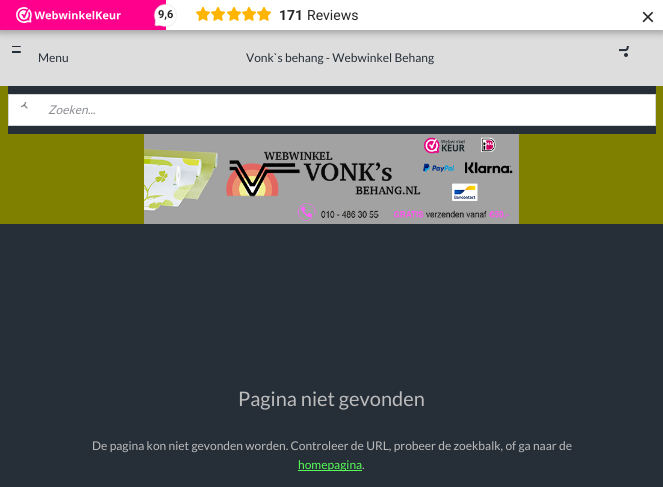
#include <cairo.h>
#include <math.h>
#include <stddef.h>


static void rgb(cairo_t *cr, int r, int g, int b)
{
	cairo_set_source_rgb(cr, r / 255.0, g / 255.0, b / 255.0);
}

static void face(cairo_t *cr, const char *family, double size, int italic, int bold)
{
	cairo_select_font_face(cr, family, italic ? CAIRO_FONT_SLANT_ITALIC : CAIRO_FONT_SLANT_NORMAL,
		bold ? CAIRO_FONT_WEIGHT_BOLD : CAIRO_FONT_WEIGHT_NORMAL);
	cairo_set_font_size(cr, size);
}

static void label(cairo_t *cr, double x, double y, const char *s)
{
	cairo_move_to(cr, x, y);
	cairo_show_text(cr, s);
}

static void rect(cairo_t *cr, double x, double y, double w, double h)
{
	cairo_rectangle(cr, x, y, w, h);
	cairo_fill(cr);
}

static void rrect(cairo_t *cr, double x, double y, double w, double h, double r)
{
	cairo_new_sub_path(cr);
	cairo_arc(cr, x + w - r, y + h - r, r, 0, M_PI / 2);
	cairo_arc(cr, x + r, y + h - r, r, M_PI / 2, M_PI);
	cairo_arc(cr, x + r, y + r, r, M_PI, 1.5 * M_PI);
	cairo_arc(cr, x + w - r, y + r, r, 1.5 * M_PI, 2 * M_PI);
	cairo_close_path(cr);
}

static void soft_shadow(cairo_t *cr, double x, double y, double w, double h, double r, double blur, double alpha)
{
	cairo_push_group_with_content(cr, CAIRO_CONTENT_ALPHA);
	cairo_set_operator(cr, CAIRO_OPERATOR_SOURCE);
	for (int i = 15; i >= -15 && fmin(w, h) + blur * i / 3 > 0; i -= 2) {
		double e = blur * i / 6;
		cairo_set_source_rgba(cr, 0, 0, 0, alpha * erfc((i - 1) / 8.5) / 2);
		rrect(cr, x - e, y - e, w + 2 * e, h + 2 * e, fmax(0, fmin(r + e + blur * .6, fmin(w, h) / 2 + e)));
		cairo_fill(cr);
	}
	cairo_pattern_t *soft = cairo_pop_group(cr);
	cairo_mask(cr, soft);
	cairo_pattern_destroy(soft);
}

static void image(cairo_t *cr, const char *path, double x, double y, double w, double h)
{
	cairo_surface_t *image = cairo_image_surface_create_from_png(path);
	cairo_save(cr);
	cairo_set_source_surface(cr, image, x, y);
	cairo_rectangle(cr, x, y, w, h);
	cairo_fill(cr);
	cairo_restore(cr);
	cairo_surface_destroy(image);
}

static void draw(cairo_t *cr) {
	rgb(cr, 128, 128, 0);
	cairo_paint(cr);
	rgb(cr, 221, 221, 221);
	rect(cr, 0, 30, 663, 56);
	rgb(cr, 0, 0, 0);
	soft_shadow(cr, -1, -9, 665, 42, 0, 3, 0.15);
	image(cr, "image3.png", 619, 46, 10, 11);
	image(cr, "image4.png", 12, 46, 9, 7);
	soft_shadow(cr, 0, 2, 663, 30, 0, 5, 0.15);
	rgb(cr, 254, 0, 140);
	rect(cr, 0, 0, 166, 30);
	image(cr, "image0.png", 16, 7, 105, 16);
	rgb(cr, 255, 255, 255);
	rect(cr, 166, 0, 497, 30);
	image(cr, "image1.png", 196, 7, 14, 14);
	image(cr, "image1.png", 211, 7, 14, 14);
	image(cr, "image1.png", 227, 7, 14, 14);
	image(cr, "image1.png", 242, 7, 14, 14);
	image(cr, "image1.png", 257, 7, 14, 14);
	face(cr, "Roboto", 14, 0, 1);
	rgb(cr, 39, 38, 38);
	label(cr, 279, 20, "171");
	face(cr, "Roboto", 14, 0, 0);
	label(cr, 307, 20, "Reviews");
	face(cr, "Lato", 24, 0, 0);
	label(cr, 641, 25, "×");
	image(cr, "image2.png", 153, 3, 24, 25);
	face(cr, "Roboto", 11, 0, 1);
	label(cr, 158, 18, "9,6");
	face(cr, "Lato", 12, 0, 0);
	rgb(cr, 38, 46, 56);
	label(cr, 38, 62, "Menu");
	label(cr, 246, 62, "Vonk`s behang - Webwinkel Behang");
	rect(cr, 8, 86, 648, 48);
	rgb(cr, 255, 255, 255);
	cairo_rectangle(cr, 8.5, 94.5, 647, 31);
	cairo_fill_preserve(cr);
	rgb(cr, 211, 213, 217);
	cairo_set_line_width(cr, 1);
	cairo_stroke(cr);
	image(cr, "image5.png", 21, 102, 7, 7);
	face(cr, "Lato", 12, 1, 0);
	rgb(cr, 137, 140, 145);
	label(cr, 48, 114, "Zoeken...");
	image(cr, "image6.png", 144, 134, 375, 90);
	rgb(cr, 38, 46, 56);
	rect(cr, 0, 224, 663, 263);
	face(cr, "Lato", 20, 0, 0);
	rgb(cr, 188, 188, 188);
	label(cr, 238, 406, "Pagina niet gevonden");
	face(cr, "Lato", 12, 0, 0);
	label(cr, 92, 450, "De pagina kon niet gevonden worden. Controleer de URL, probeer de zoekbalk, of ga naar de");
	rgb(cr, 87, 255, 87);
	rect(cr, 298, 470, 64, 1);
	label(cr, 298, 469, "homepagina");
	rgb(cr, 188, 188, 188);
	label(cr, 362, 469, ".");
}

int main(void) {
	cairo_surface_t *surface = cairo_image_surface_create(CAIRO_FORMAT_RGB24, 663, 487);
	cairo_t *cr = cairo_create(surface);
	cairo_font_options_t *options = cairo_font_options_create();
	cairo_font_options_set_hint_metrics(options, CAIRO_HINT_METRICS_OFF);
	cairo_font_options_set_hint_style(options, CAIRO_HINT_STYLE_NONE);
	cairo_set_font_options(cr, options);
	cairo_set_miter_limit(cr, 4);
	draw(cr);
	cairo_surface_write_to_png(surface, "render.png");
	cairo_font_options_destroy(options);
	cairo_destroy(cr);
	cairo_surface_destroy(surface);
	return 0;
}
